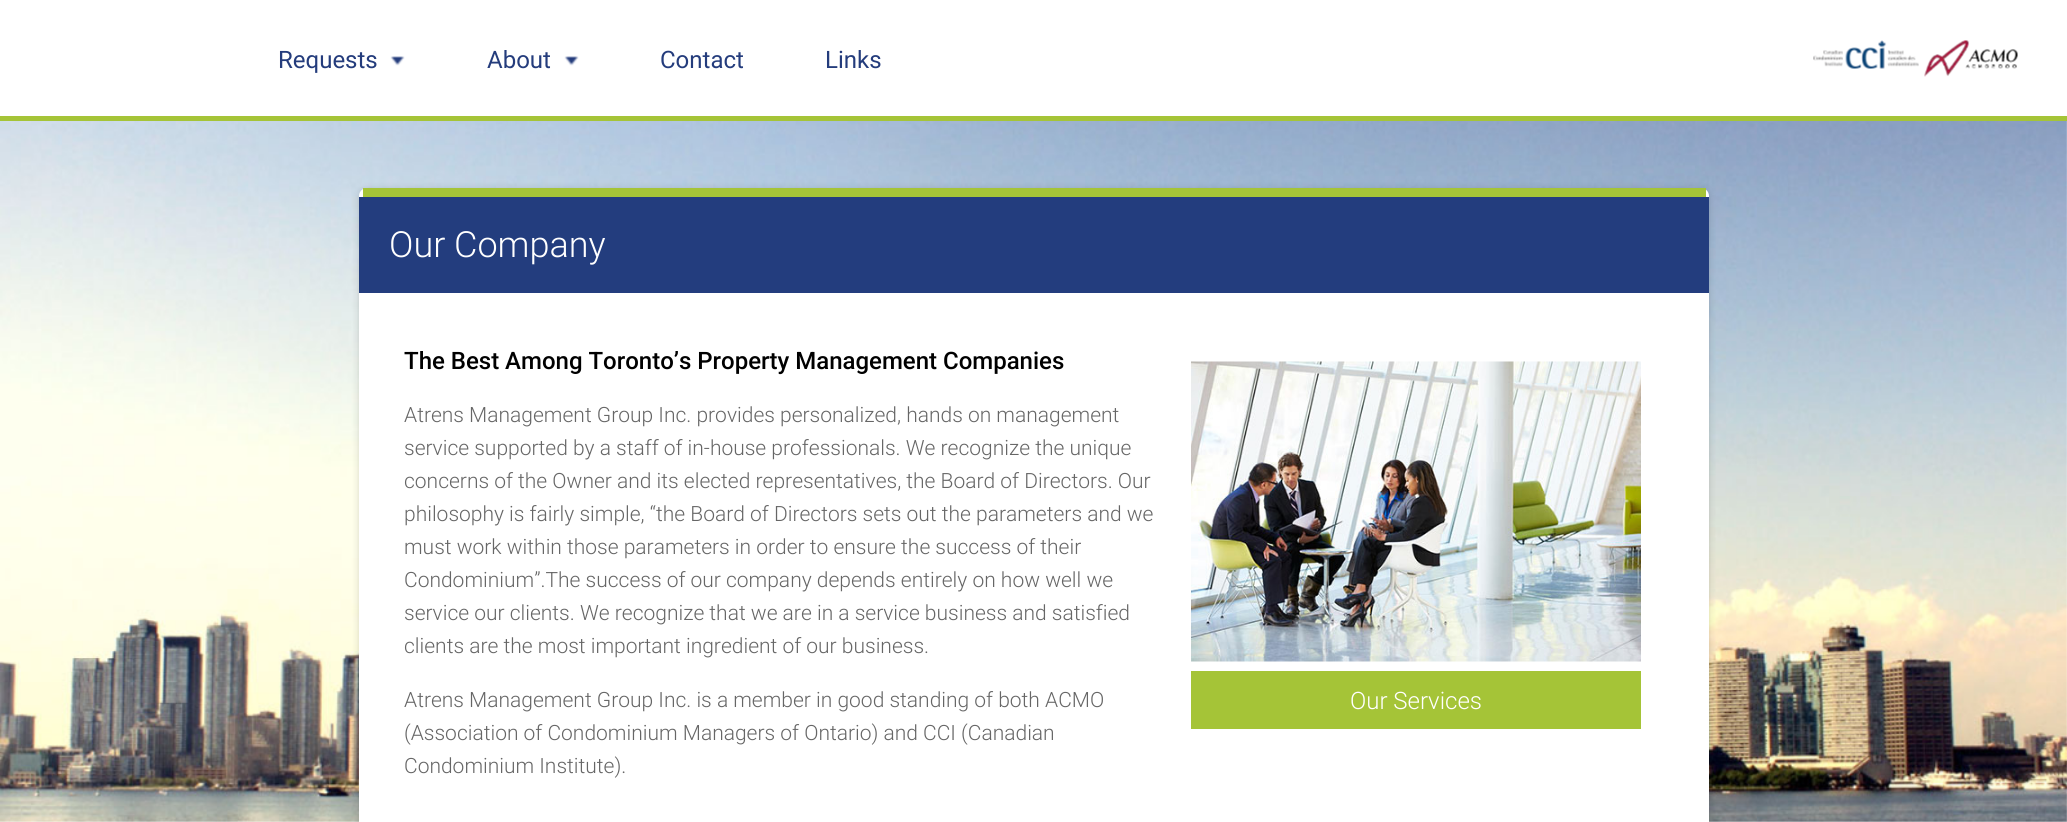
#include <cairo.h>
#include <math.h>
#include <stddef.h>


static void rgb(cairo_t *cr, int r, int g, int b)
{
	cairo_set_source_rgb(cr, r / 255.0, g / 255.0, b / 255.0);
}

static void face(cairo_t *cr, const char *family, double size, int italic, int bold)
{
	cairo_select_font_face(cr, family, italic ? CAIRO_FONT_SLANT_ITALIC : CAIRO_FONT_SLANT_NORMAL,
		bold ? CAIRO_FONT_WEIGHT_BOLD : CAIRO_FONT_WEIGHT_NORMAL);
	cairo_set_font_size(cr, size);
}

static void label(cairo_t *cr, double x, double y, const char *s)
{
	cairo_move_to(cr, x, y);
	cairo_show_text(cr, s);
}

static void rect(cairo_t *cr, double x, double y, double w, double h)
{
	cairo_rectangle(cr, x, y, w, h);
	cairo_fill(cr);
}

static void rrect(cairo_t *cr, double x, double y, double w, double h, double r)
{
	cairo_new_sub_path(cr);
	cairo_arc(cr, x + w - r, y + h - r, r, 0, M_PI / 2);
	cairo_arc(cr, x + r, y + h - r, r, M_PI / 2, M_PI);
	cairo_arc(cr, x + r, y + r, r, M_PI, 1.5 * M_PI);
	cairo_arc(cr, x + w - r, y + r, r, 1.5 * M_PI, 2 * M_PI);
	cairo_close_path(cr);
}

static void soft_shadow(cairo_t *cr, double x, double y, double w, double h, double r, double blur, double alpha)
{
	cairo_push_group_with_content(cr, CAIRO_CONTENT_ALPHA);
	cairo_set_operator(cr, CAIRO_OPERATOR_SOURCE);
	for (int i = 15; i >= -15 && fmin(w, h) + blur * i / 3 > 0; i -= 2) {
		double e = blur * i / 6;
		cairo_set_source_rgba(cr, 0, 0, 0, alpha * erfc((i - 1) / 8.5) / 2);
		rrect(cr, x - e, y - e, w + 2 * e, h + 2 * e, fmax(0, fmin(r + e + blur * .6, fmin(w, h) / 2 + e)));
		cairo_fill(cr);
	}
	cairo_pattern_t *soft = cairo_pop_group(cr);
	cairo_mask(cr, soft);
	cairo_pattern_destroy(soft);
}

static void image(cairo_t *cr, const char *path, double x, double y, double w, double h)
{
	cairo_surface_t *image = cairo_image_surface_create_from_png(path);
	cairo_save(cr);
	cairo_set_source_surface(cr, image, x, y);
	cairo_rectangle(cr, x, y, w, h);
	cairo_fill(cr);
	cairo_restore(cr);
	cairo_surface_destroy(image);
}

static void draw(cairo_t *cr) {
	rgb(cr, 255, 255, 255);
	cairo_paint(cr);
	face(cr, "Roboto", 24, 0, 0);
	rgb(cr, 36, 60, 124);
	label(cr, 278, 68, "Requests");
	image(cr, "image0.png", 390, 56, 15, 10);
	label(cr, 487, 68, "About");
	image(cr, "image0.png", 564, 56, 15, 10);
	label(cr, 660, 68, "Contact");
	label(cr, 825, 68, "Links");
	image(cr, "image1.png", 1813, 40, 106, 29);
	image(cr, "image2.png", 1924, 40, 94, 37);
	rgb(cr, 165, 196, 55);
	rect(cr, 0, 116, 2067, 5);
	image(cr, "image4.png", 0, 121, 2067, 701);
	rgb(cr, 0, 0, 0);
	soft_shadow(cr, 359, 189, 1350, 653, 8, 4, 0.15);
	rgb(cr, 255, 255, 255);
	rrect(cr, 359, 188, 1350, 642, 8);
	cairo_fill(cr);
	rgb(cr, 165, 196, 55);
	rect(cr, 363, 188, 1343, 9);
	rgb(cr, 35, 61, 126);
	rect(cr, 359, 197, 1350, 96);
	face(cr, "Roboto Light", 36, 0, 0);
	rgb(cr, 255, 255, 255);
	label(cr, 389, 257, "Our Company");
	face(cr, "Roboto Medium", 24, 0, 0);
	rgb(cr, 0, 0, 0);
	label(cr, 404, 369, "The Best Among Toronto’s Property Management Companies");
	face(cr, "Roboto Light", 21, 0, 0);
	rgb(cr, 102, 102, 102);
	label(cr, 404, 422, "Atrens Management Group Inc. provides personalized, hands on management");
	label(cr, 404, 455, "service supported by a staff of in-house professionals. We recognize the unique");
	label(cr, 404, 488, "concerns of the Owner and its elected representatives, the Board of Directors. Our");
	label(cr, 404, 521, "philosophy is fairly simple, “the Board of Directors sets out the parameters and we");
	label(cr, 404, 554, "must work within those parameters in order to ensure the success of their");
	label(cr, 404, 587, "Condominium”.The success of our company depends entirely on how well we");
	label(cr, 404, 620, "service our clients. We recognize that we are in a service business and satisfied");
	label(cr, 404, 653, "clients are the most important ingredient of our business.");
	label(cr, 404, 707, "Atrens Management Group Inc. is a member in good standing of both ACMO");
	label(cr, 404, 740, "(Association of Condominium Managers of Ontario) and CCI (Canadian");
	label(cr, 404, 773, "Condominium Institute).");
	image(cr, "image3.png", 1191, 361, 450, 301);
	rgb(cr, 165, 196, 55);
	rect(cr, 1191, 671, 450, 58);
	face(cr, "Roboto Light", 24, 0, 0);
	rgb(cr, 255, 255, 255);
	label(cr, 1350, 709, "Our Services");
}

int main(void) {
	cairo_surface_t *surface = cairo_image_surface_create(CAIRO_FORMAT_RGB24, 2067, 822);
	cairo_t *cr = cairo_create(surface);
	cairo_font_options_t *options = cairo_font_options_create();
	cairo_font_options_set_hint_metrics(options, CAIRO_HINT_METRICS_OFF);
	cairo_font_options_set_hint_style(options, CAIRO_HINT_STYLE_NONE);
	cairo_set_font_options(cr, options);
	cairo_set_miter_limit(cr, 4);
	draw(cr);
	cairo_surface_write_to_png(surface, "render.png");
	cairo_font_options_destroy(options);
	cairo_destroy(cr);
	cairo_surface_destroy(surface);
	return 0;
}
